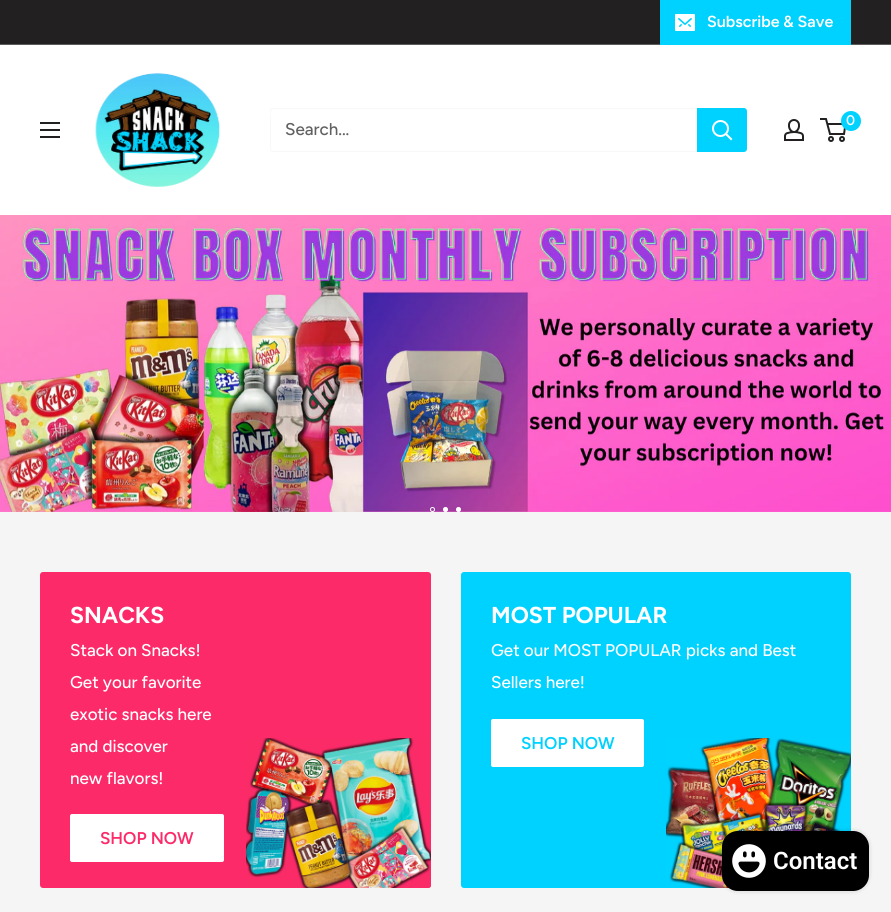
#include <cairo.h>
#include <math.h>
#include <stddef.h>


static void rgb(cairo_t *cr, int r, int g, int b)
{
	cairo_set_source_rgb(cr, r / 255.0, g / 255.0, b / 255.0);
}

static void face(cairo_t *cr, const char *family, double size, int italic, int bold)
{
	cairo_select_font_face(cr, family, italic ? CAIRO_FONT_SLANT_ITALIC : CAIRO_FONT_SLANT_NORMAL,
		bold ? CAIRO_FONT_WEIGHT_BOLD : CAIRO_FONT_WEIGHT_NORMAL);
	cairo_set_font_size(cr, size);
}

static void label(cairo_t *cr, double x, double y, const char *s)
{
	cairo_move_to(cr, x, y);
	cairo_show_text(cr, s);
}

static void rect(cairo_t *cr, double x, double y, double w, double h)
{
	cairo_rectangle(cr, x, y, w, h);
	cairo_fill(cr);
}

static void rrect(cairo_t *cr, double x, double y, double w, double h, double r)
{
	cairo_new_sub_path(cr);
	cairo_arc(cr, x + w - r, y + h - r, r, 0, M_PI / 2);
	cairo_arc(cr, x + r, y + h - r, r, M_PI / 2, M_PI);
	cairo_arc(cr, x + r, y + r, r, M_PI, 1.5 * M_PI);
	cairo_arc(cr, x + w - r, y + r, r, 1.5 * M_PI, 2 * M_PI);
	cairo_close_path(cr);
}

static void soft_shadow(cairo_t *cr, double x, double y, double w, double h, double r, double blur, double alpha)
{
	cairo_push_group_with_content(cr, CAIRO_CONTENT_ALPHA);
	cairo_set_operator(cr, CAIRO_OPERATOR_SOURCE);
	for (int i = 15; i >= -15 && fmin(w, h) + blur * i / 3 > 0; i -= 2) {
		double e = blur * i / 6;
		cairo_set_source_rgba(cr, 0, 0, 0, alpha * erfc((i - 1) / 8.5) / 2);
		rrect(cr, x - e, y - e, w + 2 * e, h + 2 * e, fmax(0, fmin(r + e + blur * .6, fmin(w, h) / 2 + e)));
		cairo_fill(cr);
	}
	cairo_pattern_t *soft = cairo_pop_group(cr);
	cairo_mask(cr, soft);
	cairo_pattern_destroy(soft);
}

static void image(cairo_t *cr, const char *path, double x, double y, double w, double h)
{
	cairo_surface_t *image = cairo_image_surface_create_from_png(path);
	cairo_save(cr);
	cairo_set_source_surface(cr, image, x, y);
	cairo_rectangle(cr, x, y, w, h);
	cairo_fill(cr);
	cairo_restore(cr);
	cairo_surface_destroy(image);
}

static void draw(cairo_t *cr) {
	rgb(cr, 245, 245, 245);
	cairo_paint(cr);
	rgb(cr, 34, 32, 33);
	rect(cr, 0, 0, 891, 44);
	rgb(cr, 93, 92, 93);
	rect(cr, 0, 44, 891, 1);
	rgb(cr, 0, 210, 255);
	rect(cr, 660, 0, 191, 45);
	image(cr, "image0.png", 675, 14, 20, 17);
	face(cr, "Figtree SemiBold", 16, 0, 0);
	rgb(cr, 255, 255, 255);
	label(cr, 707, 27, "Subscribe & Save");
	rect(cr, 0, 45, 891, 170);
	image(cr, "image1.png", 95, 73, 125, 114);
	image(cr, "image2.png", 784, 119, 20, 22);
	cairo_arc(cr, 831, 139, 2, 0, 2 * M_PI);
	rgb(cr, 34, 32, 33);
	cairo_stroke(cr);
	cairo_arc(cr, 842, 139, 2, 0, 2 * M_PI);
	cairo_stroke(cr);
	cairo_new_path(cr);
	cairo_move_to(cr, 827.5, 124);
	cairo_line_to(cr, 845.5, 124);
	cairo_line_to(cr, 844, 134);
	cairo_line_to(cr, 830, 134);
	cairo_line_to(cr, 826, 119);
	cairo_line_to(cr, 820, 119);
	cairo_stroke(cr);
	rgb(cr, 0, 210, 255);
	cairo_arc(cr, 851, 121, 10, 0, 2 * M_PI);
	cairo_fill(cr);
	face(cr, "Figtree SemiBold", 14, 0, 0);
	rgb(cr, 255, 255, 255);
	label(cr, 846, 125, "0");
	image(cr, "image3.png", 40, 122, 20, 16);
	rgb(cr, 248, 248, 248);
	cairo_new_path(cr);
	cairo_move_to(cr, 271, 151);
	cairo_curve_to(cr, 271, 152, 272, 152, 273, 152);
	cairo_line_to(cr, 744, 152);
	cairo_curve_to(cr, 746, 152, 747, 151, 747, 149);
	cairo_line_to(cr, 747, 111);
	cairo_curve_to(cr, 747, 110, 747, 109, 746, 109);
	cairo_line_to(cr, 746, 142);
	cairo_curve_to(cr, 746, 144, 748, 151, 743, 151);
	cairo_close_path(cr);
	cairo_fill(cr);
	cairo_new_path(cr);
	cairo_move_to(cr, 274, 109);
	cairo_line_to(cr, 746, 109);
	cairo_curve_to(cr, 746, 108, 745, 108, 744, 108);
	cairo_line_to(cr, 273, 108);
	cairo_curve_to(cr, 271, 108, 270, 109, 270, 111);
	cairo_line_to(cr, 270, 149);
	cairo_curve_to(cr, 270, 150, 270, 151, 271, 151);
	cairo_line_to(cr, 271, 118);
	cairo_curve_to(cr, 271, 116, 269, 109, 274, 109);
	cairo_close_path(cr);
	cairo_fill(cr);
	face(cr, "Figtree Medium", 17, 0, 0);
	rgb(cr, 97, 97, 97);
	label(cr, 285, 135, "Search...");
	rgb(cr, 0, 210, 255);
	cairo_new_path(cr);
	cairo_move_to(cr, 697, 108);
	cairo_line_to(cr, 744, 108);
	cairo_curve_to(cr, 745.5, 108, 747, 109.5, 747, 111);
	cairo_line_to(cr, 747, 149);
	cairo_curve_to(cr, 747, 150.5, 745.5, 152, 744, 152);
	cairo_line_to(cr, 697, 152);
	cairo_close_path(cr);
	cairo_fill(cr);
	cairo_new_path(cr);
	cairo_move_to(cr, 731, 139);
	cairo_line_to(cr, 726, 134);
	rgb(cr, 255, 255, 255);
	cairo_set_line_cap(cr, CAIRO_LINE_CAP_SQUARE);
	cairo_stroke(cr);
	cairo_arc(cr, 720.5, 128.5, 7.5, 0, 2 * M_PI);
	cairo_set_line_cap(cr, CAIRO_LINE_CAP_BUTT);
	cairo_stroke(cr);
	image(cr, "image4.png", 0, 215, 891, 297);
	cairo_arc(cr, 432.5, 509.5, 2, 0, 2 * M_PI);
	cairo_set_line_width(cr, 1);
	cairo_stroke(cr);
	cairo_arc(cr, 445.5, 509.5, 2, 0, 2 * M_PI);
	cairo_fill_preserve(cr);
	cairo_stroke(cr);
	cairo_arc(cr, 458.5, 509.5, 2, 0, 2 * M_PI);
	cairo_fill_preserve(cr);
	cairo_stroke(cr);
	rgb(cr, 252, 42, 104);
	rrect(cr, 40, 572, 391, 316, 3);
	cairo_fill(cr);
	face(cr, "Figtree", 23, 0, 1);
	rgb(cr, 255, 255, 255);
	label(cr, 70, 623, "SNACKS");
	face(cr, "Figtree Medium", 17, 0, 0);
	label(cr, 70, 656, "Stack on Snacks!");
	label(cr, 70, 688, "Get your favorite");
	label(cr, 70, 720, "exotic snacks here");
	label(cr, 70, 752, "and discover");
	label(cr, 70, 784, "new flavors!");
	rrect(cr, 70, 814, 154, 48, 2);
	cairo_fill(cr);
	face(cr, "Figtree SemiBold", 17, 0, 0);
	rgb(cr, 252, 42, 104);
	label(cr, 100, 844, "SHOP NOW");
	image(cr, "image5.png", 246, 738, 185, 150);
	rgb(cr, 0, 210, 255);
	rrect(cr, 461, 572, 390, 316, 3);
	cairo_fill(cr);
	face(cr, "Figtree", 23, 0, 1);
	rgb(cr, 255, 255, 255);
	label(cr, 491, 623, "MOST POPULAR");
	face(cr, "Figtree Medium", 17, 0, 0);
	label(cr, 491, 656, "Get our MOST POPULAR picks and Best");
	label(cr, 491, 688, "Sellers here!");
	rrect(cr, 491, 719, 153, 48, 2);
	cairo_fill(cr);
	face(cr, "Figtree SemiBold", 17, 0, 0);
	rgb(cr, 0, 210, 255);
	label(cr, 521, 749, "SHOP NOW");
	image(cr, "image6.png", 666, 738, 185, 150);
	rgb(cr, 0, 0, 0);
	soft_shadow(cr, 722, 831, 147, 60, 16, 2.5, 0.15);
	rgb(cr, 0, 0, 0);
	rrect(cr, 722, 831, 147, 60, 16);
	cairo_fill(cr);
	image(cr, "image7.png", 732, 844, 34, 34);
	face(cr, "Roboto SemiBold", 24, 0, 0);
	rgb(cr, 255, 255, 255);
	label(cr, 773, 869, "Contact");
}

int main(void) {
	cairo_surface_t *surface = cairo_image_surface_create(CAIRO_FORMAT_RGB24, 891, 912);
	cairo_t *cr = cairo_create(surface);
	cairo_font_options_t *options = cairo_font_options_create();
	cairo_font_options_set_hint_metrics(options, CAIRO_HINT_METRICS_OFF);
	cairo_font_options_set_hint_style(options, CAIRO_HINT_STYLE_NONE);
	cairo_set_font_options(cr, options);
	cairo_set_miter_limit(cr, 4);
	draw(cr);
	cairo_surface_write_to_png(surface, "render.png");
	cairo_font_options_destroy(options);
	cairo_destroy(cr);
	cairo_surface_destroy(surface);
	return 0;
}
